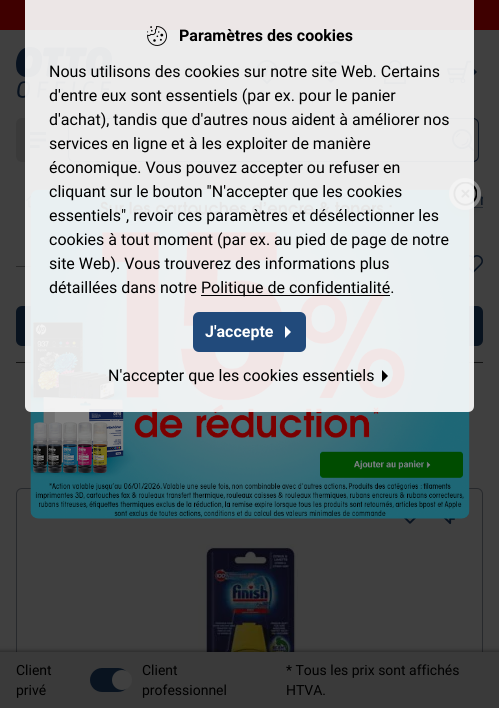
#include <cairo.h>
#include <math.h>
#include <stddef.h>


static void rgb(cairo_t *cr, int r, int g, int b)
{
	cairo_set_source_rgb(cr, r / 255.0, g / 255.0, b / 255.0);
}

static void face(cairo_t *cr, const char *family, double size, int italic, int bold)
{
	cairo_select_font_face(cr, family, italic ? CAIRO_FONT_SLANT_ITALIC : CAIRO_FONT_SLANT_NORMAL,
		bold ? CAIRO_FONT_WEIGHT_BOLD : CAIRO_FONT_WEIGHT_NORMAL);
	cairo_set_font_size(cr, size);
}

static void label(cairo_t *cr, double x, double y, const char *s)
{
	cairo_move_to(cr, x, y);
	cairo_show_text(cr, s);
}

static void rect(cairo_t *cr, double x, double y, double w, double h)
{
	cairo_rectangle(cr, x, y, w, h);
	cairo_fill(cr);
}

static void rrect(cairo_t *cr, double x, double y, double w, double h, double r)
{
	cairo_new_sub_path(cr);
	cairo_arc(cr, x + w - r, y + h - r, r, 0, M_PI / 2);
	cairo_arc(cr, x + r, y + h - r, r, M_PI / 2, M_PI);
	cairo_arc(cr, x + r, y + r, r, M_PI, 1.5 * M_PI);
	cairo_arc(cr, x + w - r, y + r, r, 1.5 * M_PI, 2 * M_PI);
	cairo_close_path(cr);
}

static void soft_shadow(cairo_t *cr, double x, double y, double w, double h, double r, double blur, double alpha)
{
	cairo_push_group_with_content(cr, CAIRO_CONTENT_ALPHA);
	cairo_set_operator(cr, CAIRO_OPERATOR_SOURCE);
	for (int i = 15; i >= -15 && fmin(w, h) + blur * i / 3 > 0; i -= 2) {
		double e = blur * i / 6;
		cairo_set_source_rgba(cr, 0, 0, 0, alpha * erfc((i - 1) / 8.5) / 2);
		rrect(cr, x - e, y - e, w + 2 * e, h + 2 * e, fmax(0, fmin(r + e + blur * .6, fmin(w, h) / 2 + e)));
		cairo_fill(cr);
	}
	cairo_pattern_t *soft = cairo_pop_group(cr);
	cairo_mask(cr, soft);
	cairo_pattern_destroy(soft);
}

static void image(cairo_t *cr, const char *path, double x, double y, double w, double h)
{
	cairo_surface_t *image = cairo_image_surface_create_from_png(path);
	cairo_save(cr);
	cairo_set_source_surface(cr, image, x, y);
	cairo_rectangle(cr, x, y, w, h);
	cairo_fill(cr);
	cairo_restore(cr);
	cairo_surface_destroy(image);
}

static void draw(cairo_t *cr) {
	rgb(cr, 64, 64, 64);
	cairo_paint(cr);
	rgb(cr, 63, 0, 0);
	rect(cr, 0, 0, 499, 30);
	image(cr, "image10.png", 26, 193, 7, 15);
	rgb(cr, 35, 40, 46);
	rect(cr, 446, 207, 37, 1);
	rgb(cr, 41, 41, 41);
	rect(cr, 16, 266, 20, 1);
	image(cr, "image11.png", 464, 255, 19, 18);
	rgb(cr, 9, 19, 31);
	rrect(cr, 16, 306, 467, 40, 6);
	cairo_fill(cr);
	rgb(cr, 19, 19, 19);
	rect(cr, 16, 362, 467, 1);
	rrect(cr, 32.5, 403.5, 313, 44, 5.5);
	rgb(cr, 53, 53, 53);
	cairo_set_line_width(cr, 1);
	cairo_stroke(cr);
	rrect(cr, 16.5, 488.5, 466, 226, 5.5);
	rgb(cr, 39, 41, 44);
	cairo_stroke(cr);
	image(cr, "image12.png", 404, 502, 12, 22);
	image(cr, "image13.png", 443, 505, 19, 20);
	image(cr, "image2.png", 30, 189, 440, 330);
	rgb(cr, 0, 0, 0);
	soft_shadow(cr, 451, 182, 28, 28, 14, 2, 0.1);
	soft_shadow(cr, 450, 183, 30, 30, 15, 3, 0.1);
	rgb(cr, 128, 128, 128);
	cairo_arc(cr, 465, 194, 16, 0, 2 * M_PI);
	cairo_fill(cr);
	image(cr, "image1.png", 453, 182, 24, 24);
	image(cr, "image3.png", 16, 47, 96, 51);
	image(cr, "image4.png", 256, 60, 22, 24);
	rgb(cr, 58, 58, 59);
	rect(cr, 298, 48, 1, 48);
	image(cr, "image5.png", 319, 61, 24, 22);
	rect(cr, 362, 48, 1, 48);
	image(cr, "image6.png", 383, 60, 24, 24);
	rect(cr, 426, 48, 1, 48);
	image(cr, "image7.png", 447, 60, 24, 24);
	rgb(cr, 9, 19, 31);
	cairo_new_path(cr);
	cairo_move_to(cr, 473, 76);
	cairo_line_to(cr, 473, 68);
	cairo_line_to(cr, 477, 72);
	cairo_close_path(cr);
	cairo_fill(cr);
	rgb(cr, 58, 58, 58);
	rrect(cr, 16, 118, 44, 44, 6);
	cairo_fill(cr);
	image(cr, "image8.png", 30, 132, 16, 16);
	rrect(cr, 68.5, 118.5, 410, 43, 5.5);
	rgb(cr, 9, 19, 31);
	cairo_stroke(cr);
	image(cr, "image9.png", 452, 129, 22, 22);
	cairo_set_source_rgba(cr, 1, 1, 1, 0.9);
	cairo_new_path(cr);
	cairo_move_to(cr, 25, 0);
	cairo_line_to(cr, 474, 0);
	cairo_line_to(cr, 474, 406);
	cairo_curve_to(cr, 474, 409.5, 471.5, 412, 468, 412);
	cairo_line_to(cr, 31, 412);
	cairo_curve_to(cr, 27.5, 412, 25, 409.5, 25, 406);
	cairo_close_path(cr);
	cairo_fill(cr);
	image(cr, "image0.png", 147, 26, 20, 20);
	face(cr, "Roboto", 16, 0, 1);
	rgb(cr, 0, 0, 0);
	label(cr, 179, 41, "Paramètres des cookies");
	face(cr, "Roboto", 16, 0, 0);
	label(cr, 49, 77, "Nous utilisons des cookies sur notre site Web. Certains");
	label(cr, 49, 101, "d'entre eux sont essentiels (par ex. pour le panier");
	label(cr, 49, 125, "d'achat), tandis que d'autres nous aident à améliorer nos");
	label(cr, 49, 149, "services en ligne et à les exploiter de manière");
	label(cr, 49, 173, "économique. Vous pouvez accepter ou refuser en");
	label(cr, 49, 197, "cliquant sur le bouton \"N'accepter que les cookies");
	label(cr, 49, 221, "essentiels\", revoir ces paramètres et désélectionner les");
	label(cr, 49, 245, "cookies à tout moment (par ex. au pied de page de notre");
	label(cr, 49, 269, "site Web). Vous trouverez des informations plus");
	label(cr, 49, 293, "détaillées dans notre");
	rect(cr, 201, 295, 189, 1);
	label(cr, 201, 293, "Politique de confidentialité.");
	rgb(cr, 33, 74, 123);
	rrect(cr, 193, 312, 113, 40, 6);
	cairo_fill(cr);
	face(cr, "Roboto", 16, 0, 1);
	rgb(cr, 255, 255, 255);
	label(cr, 205, 337, "J'accepte");
	cairo_new_path(cr);
	cairo_move_to(cr, 285, 338);
	cairo_line_to(cr, 285, 326);
	cairo_line_to(cr, 291, 332);
	cairo_close_path(cr);
	cairo_fill(cr);
	face(cr, "Roboto", 16, 0, 0);
	rgb(cr, 0, 0, 0);
	label(cr, 108, 381, "N'accepter que les cookies essentiels");
	cairo_new_path(cr);
	cairo_move_to(cr, 382, 382);
	cairo_line_to(cr, 382, 370);
	cairo_line_to(cr, 388, 376);
	cairo_close_path(cr);
	cairo_fill(cr);
	cairo_save(cr);
	cairo_rectangle(cr, 16, 182, 467, 36);
	cairo_clip(cr);
	rgb(cr, 9, 19, 31);
	label(cr, 480, 205, "r");
	cairo_restore(cr);
	image(cr, "image14.png", 198, 544, 100, 108);
	rgb(cr, 0, 0, 0);
	soft_shadow(cr, -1, 651, 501, 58, 0, 2, 0.4);
	rgb(cr, 58, 58, 58);
	rect(cr, 0, 652, 499, 56);
	face(cr, "Roboto", 14, 0, 0);
	rgb(cr, 0, 0, 0);
	label(cr, 16, 675, "Client");
	label(cr, 16, 695, "privé");
	rgb(cr, 9, 19, 31);
	rrect(cr, 90, 668, 40, 24, 12);
	cairo_fill(cr);
	rgb(cr, 64, 64, 64);
	cairo_arc(cr, 122, 680, 10, 0, 2 * M_PI);
	cairo_fill(cr);
	rgb(cr, 0, 0, 0);
	label(cr, 142, 675, "Client");
	label(cr, 142, 695, "professionnel");
	label(cr, 286, 675, "* Tous les prix sont affichés");
	label(cr, 286, 695, "HTVA.");
}

int main(void) {
	cairo_surface_t *surface = cairo_image_surface_create(CAIRO_FORMAT_RGB24, 499, 708);
	cairo_t *cr = cairo_create(surface);
	cairo_font_options_t *options = cairo_font_options_create();
	cairo_font_options_set_hint_metrics(options, CAIRO_HINT_METRICS_OFF);
	cairo_font_options_set_hint_style(options, CAIRO_HINT_STYLE_NONE);
	cairo_set_font_options(cr, options);
	cairo_set_miter_limit(cr, 4);
	draw(cr);
	cairo_surface_write_to_png(surface, "render.png");
	cairo_font_options_destroy(options);
	cairo_destroy(cr);
	cairo_surface_destroy(surface);
	return 0;
}
